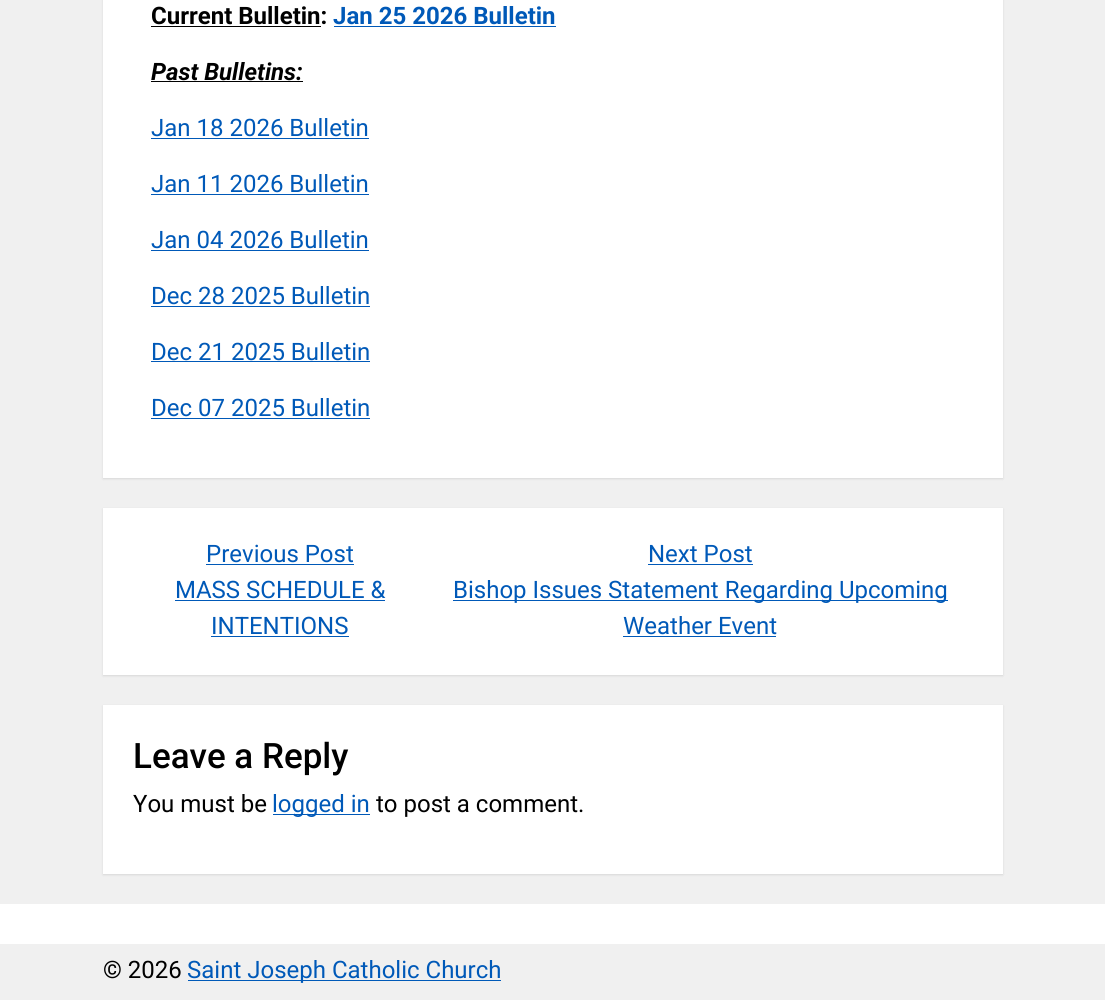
#include <cairo.h>
#include <math.h>
#include <stddef.h>


static void rgb(cairo_t *cr, int r, int g, int b)
{
	cairo_set_source_rgb(cr, r / 255.0, g / 255.0, b / 255.0);
}

static void face(cairo_t *cr, const char *family, double size, int italic, int bold)
{
	cairo_select_font_face(cr, family, italic ? CAIRO_FONT_SLANT_ITALIC : CAIRO_FONT_SLANT_NORMAL,
		bold ? CAIRO_FONT_WEIGHT_BOLD : CAIRO_FONT_WEIGHT_NORMAL);
	cairo_set_font_size(cr, size);
}

static void label(cairo_t *cr, double x, double y, const char *s)
{
	cairo_move_to(cr, x, y);
	cairo_show_text(cr, s);
}

static void rect(cairo_t *cr, double x, double y, double w, double h)
{
	cairo_rectangle(cr, x, y, w, h);
	cairo_fill(cr);
}

static void rrect(cairo_t *cr, double x, double y, double w, double h, double r)
{
	cairo_new_sub_path(cr);
	cairo_arc(cr, x + w - r, y + h - r, r, 0, M_PI / 2);
	cairo_arc(cr, x + r, y + h - r, r, M_PI / 2, M_PI);
	cairo_arc(cr, x + r, y + r, r, M_PI, 1.5 * M_PI);
	cairo_arc(cr, x + w - r, y + r, r, 1.5 * M_PI, 2 * M_PI);
	cairo_close_path(cr);
}

static void soft_shadow(cairo_t *cr, double x, double y, double w, double h, double r, double blur, double alpha)
{
	cairo_push_group_with_content(cr, CAIRO_CONTENT_ALPHA);
	cairo_set_operator(cr, CAIRO_OPERATOR_SOURCE);
	for (int i = 15; i >= -15 && fmin(w, h) + blur * i / 3 > 0; i -= 2) {
		double e = blur * i / 6;
		cairo_set_source_rgba(cr, 0, 0, 0, alpha * erfc((i - 1) / 8.5) / 2);
		rrect(cr, x - e, y - e, w + 2 * e, h + 2 * e, fmax(0, fmin(r + e + blur * .6, fmin(w, h) / 2 + e)));
		cairo_fill(cr);
	}
	cairo_pattern_t *soft = cairo_pop_group(cr);
	cairo_mask(cr, soft);
	cairo_pattern_destroy(soft);
}

static void draw(cairo_t *cr) {
	rgb(cr, 240, 240, 240);
	cairo_paint(cr);
	rgb(cr, 0, 0, 0);
	soft_shadow(cr, 103, -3, 900, 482, 0, 1, 0.1);
	rgb(cr, 255, 255, 255);
	rect(cr, 103, 0, 900, 478);
	face(cr, "Roboto", 24, 0, 1);
	rgb(cr, 0, 0, 0);
	label(cr, 151, 24, "Current Bulletin:");
	rect(cr, 151, 26, 170, 1);
	rgb(cr, 0, 89, 184);
	label(cr, 333, 24, "Jan 25 2026 Bulletin");
	rect(cr, 334, 26, 222, 1);
	face(cr, "Roboto", 24, 1, 1);
	rgb(cr, 0, 0, 0);
	label(cr, 151, 80, "Past Bulletins:");
	rect(cr, 151, 81, 152, 1);
	face(cr, "Roboto", 24, 0, 0);
	rgb(cr, 0, 89, 184);
	label(cr, 151, 136, "Jan 18 2026 Bulletin");
	rect(cr, 151, 138, 218, 1);
	label(cr, 151, 192, "Jan 11 2026 Bulletin");
	rect(cr, 151, 194, 218, 1);
	label(cr, 151, 248, "Jan 04 2026 Bulletin");
	rect(cr, 151, 250, 218, 1);
	label(cr, 151, 304, "Dec 28 2025 Bulletin");
	rect(cr, 151, 306, 219, 1);
	label(cr, 151, 360, "Dec 21 2025 Bulletin");
	rect(cr, 151, 361, 219, 1);
	label(cr, 151, 416, "Dec 07 2025 Bulletin");
	rect(cr, 151, 418, 219, 1);
	rgb(cr, 0, 0, 0);
	soft_shadow(cr, 103, 509, 900, 167, 0, 1, 0.1);
	rgb(cr, 255, 255, 255);
	rect(cr, 103, 508, 900, 167);
	rgb(cr, 0, 89, 184);
	label(cr, 206, 562, "Previous Post");
	rect(cr, 206, 564, 148, 1);
	label(cr, 175, 598, "MASS SCHEDULE &");
	rect(cr, 175, 600, 210, 1);
	label(cr, 211, 634, "INTENTIONS");
	rect(cr, 211, 636, 138, 1);
	label(cr, 648, 562, "Next Post");
	rect(cr, 648, 564, 105, 1);
	rect(cr, 453, 600, 495, 1);
	label(cr, 453, 598, "Bishop Issues Statement Regarding Upcoming");
	label(cr, 623, 634, "Weather Event");
	rect(cr, 623, 636, 153, 1);
	rgb(cr, 0, 0, 0);
	soft_shadow(cr, 103, 706, 900, 169, 0, 1, 0.1);
	rgb(cr, 255, 255, 255);
	rect(cr, 103, 705, 900, 169);
	face(cr, "Roboto Medium", 35, 0, 0);
	rgb(cr, 0, 0, 0);
	label(cr, 133, 768, "Leave a Reply");
	face(cr, "Roboto", 24, 0, 0);
	label(cr, 133, 812, "You must be");
	rgb(cr, 0, 89, 184);
	rect(cr, 273, 814, 97, 1);
	label(cr, 272, 812, "logged in");
	rgb(cr, 0, 0, 0);
	label(cr, 376, 812, "to post a comment.");
	rgb(cr, 255, 255, 255);
	rect(cr, 0, 904, 1105, 40);
	rgb(cr, 0, 0, 0);
	label(cr, 103, 978, "© 2026");
	rgb(cr, 0, 89, 184);
	rect(cr, 188, 980, 313, 1);
	label(cr, 187, 978, "Saint Joseph Catholic Church");
}

int main(void) {
	cairo_surface_t *surface = cairo_image_surface_create(CAIRO_FORMAT_RGB24, 1105, 1000);
	cairo_t *cr = cairo_create(surface);
	cairo_font_options_t *options = cairo_font_options_create();
	cairo_font_options_set_hint_metrics(options, CAIRO_HINT_METRICS_OFF);
	cairo_font_options_set_hint_style(options, CAIRO_HINT_STYLE_NONE);
	cairo_set_font_options(cr, options);
	cairo_set_miter_limit(cr, 4);
	draw(cr);
	cairo_surface_write_to_png(surface, "render.png");
	cairo_font_options_destroy(options);
	cairo_destroy(cr);
	cairo_surface_destroy(surface);
	return 0;
}
